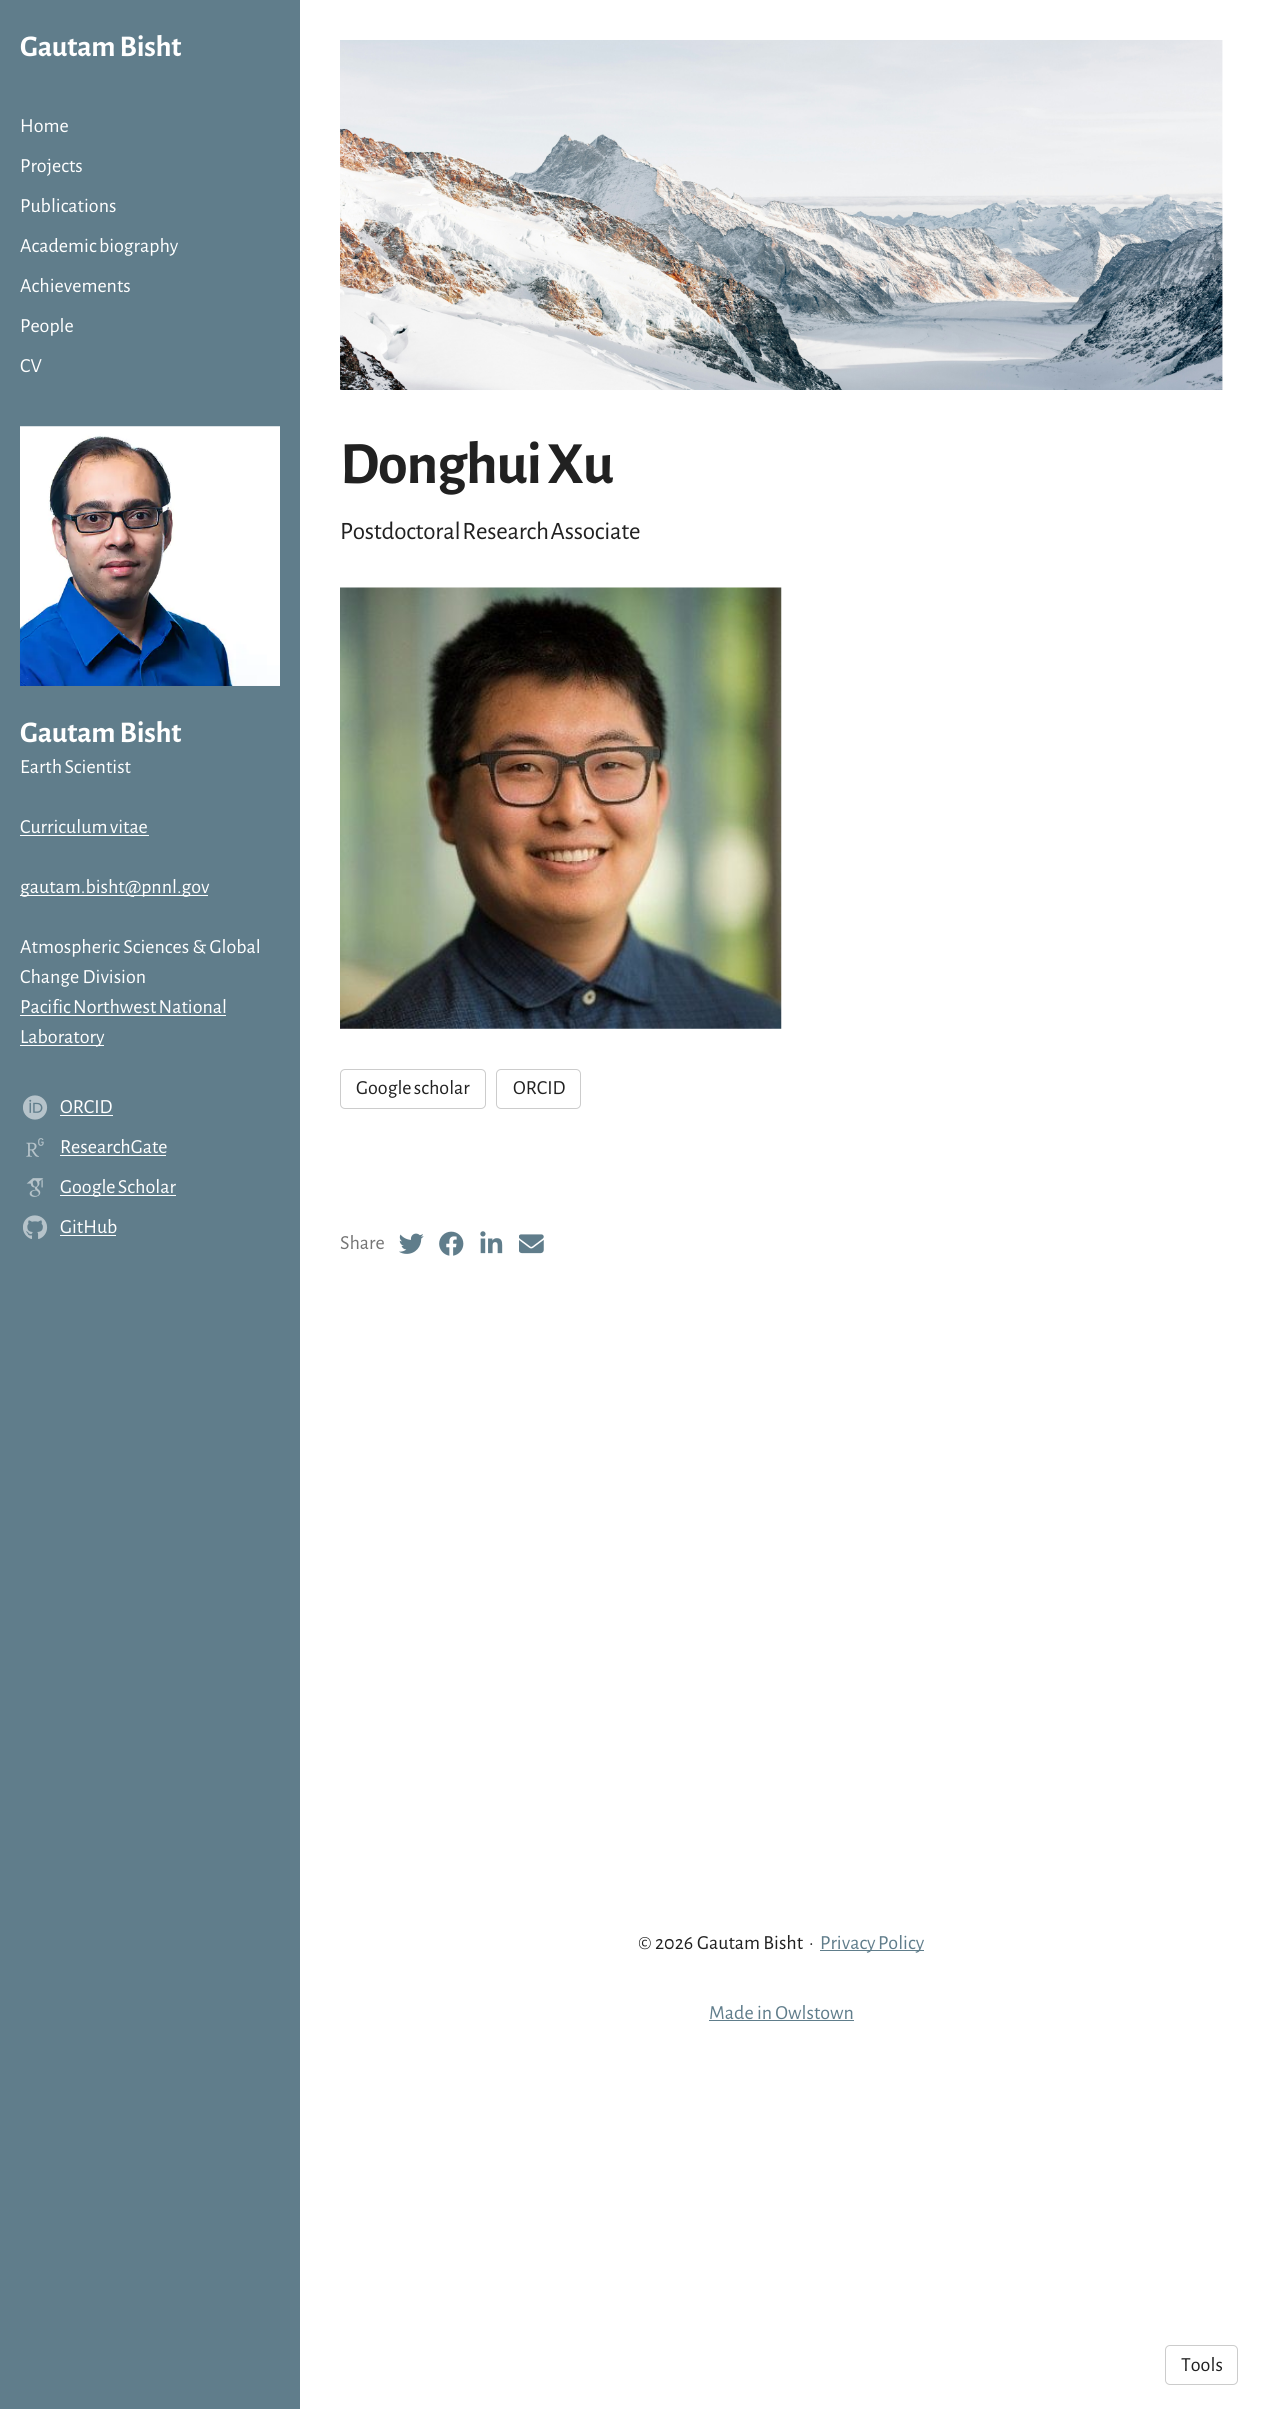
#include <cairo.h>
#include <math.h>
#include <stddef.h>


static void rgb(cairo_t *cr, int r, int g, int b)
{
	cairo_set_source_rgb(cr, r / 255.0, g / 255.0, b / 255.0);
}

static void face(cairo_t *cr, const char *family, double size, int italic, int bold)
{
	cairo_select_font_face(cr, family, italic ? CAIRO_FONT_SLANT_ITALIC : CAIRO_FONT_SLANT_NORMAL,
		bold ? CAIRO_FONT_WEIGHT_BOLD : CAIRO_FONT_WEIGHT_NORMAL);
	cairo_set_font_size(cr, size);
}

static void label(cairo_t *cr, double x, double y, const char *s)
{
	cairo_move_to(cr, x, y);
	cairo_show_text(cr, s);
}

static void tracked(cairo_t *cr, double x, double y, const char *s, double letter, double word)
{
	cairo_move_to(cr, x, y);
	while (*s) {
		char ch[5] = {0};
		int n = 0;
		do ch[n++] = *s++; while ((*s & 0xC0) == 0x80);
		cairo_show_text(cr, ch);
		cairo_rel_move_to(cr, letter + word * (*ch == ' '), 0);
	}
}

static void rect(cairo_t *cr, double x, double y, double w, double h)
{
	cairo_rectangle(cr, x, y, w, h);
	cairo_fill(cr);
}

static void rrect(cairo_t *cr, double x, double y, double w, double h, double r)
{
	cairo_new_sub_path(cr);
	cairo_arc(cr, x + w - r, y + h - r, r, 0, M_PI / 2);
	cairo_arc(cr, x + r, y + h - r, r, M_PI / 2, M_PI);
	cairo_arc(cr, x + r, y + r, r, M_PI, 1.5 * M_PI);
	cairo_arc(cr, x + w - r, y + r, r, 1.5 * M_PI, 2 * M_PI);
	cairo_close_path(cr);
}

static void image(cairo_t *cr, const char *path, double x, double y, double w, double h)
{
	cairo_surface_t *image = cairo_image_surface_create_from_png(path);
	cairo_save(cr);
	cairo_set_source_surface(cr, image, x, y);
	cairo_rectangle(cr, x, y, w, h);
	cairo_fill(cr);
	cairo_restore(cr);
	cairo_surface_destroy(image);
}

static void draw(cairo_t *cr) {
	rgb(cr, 255, 255, 255);
	cairo_paint(cr);
	rgb(cr, 96, 125, 139);
	rect(cr, 0, 0, 300, 2409);
	face(cr, "Alegreya Sans", 30, 0, 1);
	rgb(cr, 255, 255, 255);
	tracked(cr, 20, 56, "Gautam Bisht", -0.25, 0);
	face(cr, "Alegreya Sans", 20, 0, 0);
	label(cr, 20, 132, "Home");
	label(cr, 20, 172, "Projects");
	label(cr, 20, 212, "Publications");
	tracked(cr, 20, 252, "Academic biography", 0, -1);
	label(cr, 20, 292, "Achievements");
	label(cr, 20, 332, "People");
	label(cr, 20, 372, "CV");
	image(cr, "image0.png", 20, 426, 260, 260);
	face(cr, "Alegreya Sans", 30, 0, 1);
	tracked(cr, 20, 742, "Gautam Bisht", -0.25, 0);
	face(cr, "Alegreya Sans", 20, 0, 0);
	tracked(cr, 20, 773, "Earth Scientist", 0, -1);
	tracked(cr, 20, 833, "Curriculum vitae", 0, -1);
	rect(cr, 20, 835, 129, 1);
	rect(cr, 20, 895, 188, 1);
	label(cr, 20, 893, "gautam.bisht@pnnl.gov");
	label(cr, 20, 953, "Atmospheric Sciences & Global");
	label(cr, 20, 983, "Change Division");
	tracked(cr, 20, 1013, "Pacific Northwest National", 0, -1);
	rect(cr, 20, 1015, 206, 1);
	rect(cr, 20, 1045, 84, 1);
	label(cr, 20, 1043, "Laboratory");
	image(cr, "image1.png", 23, 1095, 25, 25);
	label(cr, 60, 1113, "ORCID");
	rect(cr, 60, 1115, 53, 1);
	image(cr, "image2.png", 26, 1138, 18, 19);
	label(cr, 60, 1153, "ResearchGate");
	rect(cr, 60, 1155, 106, 1);
	image(cr, "image3.png", 26, 1178, 18, 19);
	rect(cr, 60, 1195, 116, 1);
	tracked(cr, 60, 1193, "Google Scholar", 0, -1);
	image(cr, "image4.png", 23, 1215, 25, 24);
	label(cr, 60, 1233, "GitHub");
	rect(cr, 60, 1235, 56, 1);
	image(cr, "image6.png", 1222, 40, 1, 350);
	image(cr, "image5.png", 340, 40, 883, 350);
	face(cr, "Alegreya Sans", 60, 0, 1);
	rgb(cr, 33, 33, 33);
	tracked(cr, 340, 483, "Donghui Xu", -1.25, -2);
	face(cr, "Alegreya Sans", 25, 0, 0);
	tracked(cr, 340, 539, "Postdoctoral Research Associate", -0.25, -2);
	image(cr, "image7.png", 340, 587, 442, 442);
	rrect(cr, 340.5, 1069.5, 145, 39, 4.5);
	rgb(cr, 204, 204, 204);
	cairo_set_line_width(cr, 1);
	cairo_stroke(cr);
	face(cr, "Alegreya Sans", 20, 0, 0);
	rgb(cr, 33, 33, 33);
	tracked(cr, 356, 1094, "Google scholar", 0, -1);
	rrect(cr, 496.5, 1069.5, 84, 39, 4.5);
	rgb(cr, 204, 204, 204);
	cairo_stroke(cr);
	rgb(cr, 33, 33, 33);
	label(cr, 513, 1094, "ORCID");
	rgb(cr, 117, 117, 117);
	label(cr, 340, 1249, "Share");
	image(cr, "image8.png", 399, 1233, 25, 21);
	image(cr, "image9.png", 439, 1231, 25, 25);
	image(cr, "image10.png", 480, 1231, 23, 23);
	image(cr, "image11.png", 519, 1234, 25, 20);
	rgb(cr, 33, 33, 33);
	label(cr, 638, 1949, "© 2026");
	label(cr, 697, 1949, "Gautam Bisht");
	label(cr, 809, 1949, "·");
	rgb(cr, 96, 125, 139);
	rect(cr, 820, 1950, 104, 1);
	tracked(cr, 820, 1949, "Privacy Policy", 0, -1);
	label(cr, 709, 2019, "Made in Owlstown");
	rect(cr, 709, 2020, 145, 1);
	rrect(cr, 1165.5, 2345.5, 72, 39, 4.5);
	rgb(cr, 204, 204, 204);
	cairo_stroke(cr);
	rgb(cr, 33, 33, 33);
	label(cr, 1181, 2371, "Tools");
}

int main(void) {
	cairo_surface_t *surface = cairo_image_surface_create(CAIRO_FORMAT_RGB24, 1262, 2409);
	cairo_t *cr = cairo_create(surface);
	cairo_font_options_t *options = cairo_font_options_create();
	cairo_font_options_set_hint_metrics(options, CAIRO_HINT_METRICS_OFF);
	cairo_font_options_set_hint_style(options, CAIRO_HINT_STYLE_NONE);
	cairo_set_font_options(cr, options);
	cairo_set_miter_limit(cr, 4);
	draw(cr);
	cairo_surface_write_to_png(surface, "render.png");
	cairo_font_options_destroy(options);
	cairo_destroy(cr);
	cairo_surface_destroy(surface);
	return 0;
}
